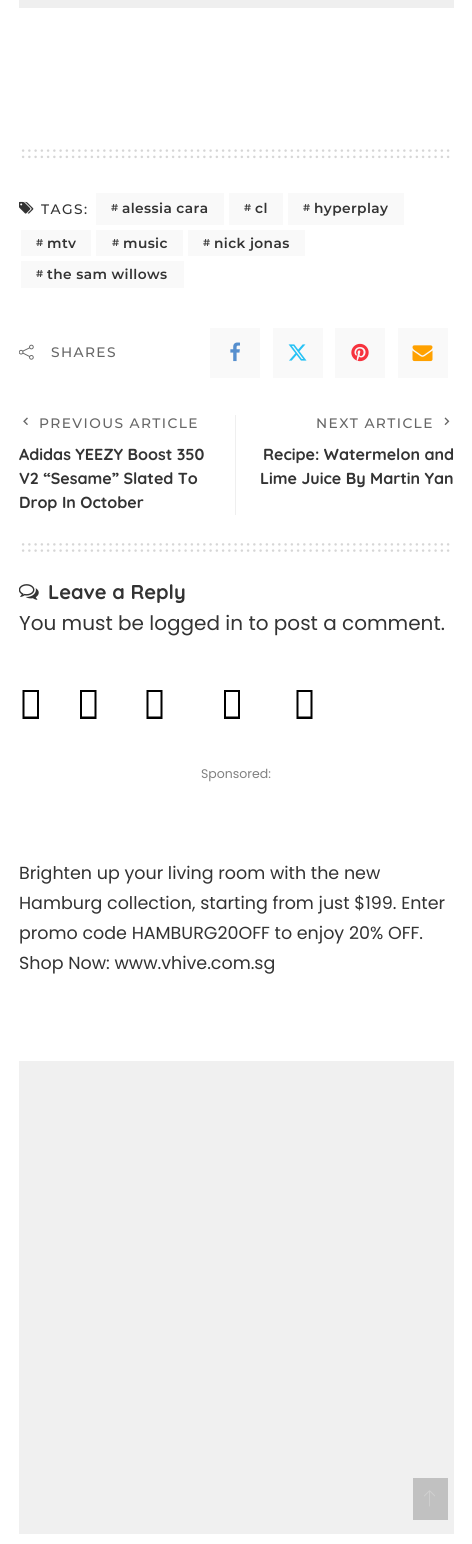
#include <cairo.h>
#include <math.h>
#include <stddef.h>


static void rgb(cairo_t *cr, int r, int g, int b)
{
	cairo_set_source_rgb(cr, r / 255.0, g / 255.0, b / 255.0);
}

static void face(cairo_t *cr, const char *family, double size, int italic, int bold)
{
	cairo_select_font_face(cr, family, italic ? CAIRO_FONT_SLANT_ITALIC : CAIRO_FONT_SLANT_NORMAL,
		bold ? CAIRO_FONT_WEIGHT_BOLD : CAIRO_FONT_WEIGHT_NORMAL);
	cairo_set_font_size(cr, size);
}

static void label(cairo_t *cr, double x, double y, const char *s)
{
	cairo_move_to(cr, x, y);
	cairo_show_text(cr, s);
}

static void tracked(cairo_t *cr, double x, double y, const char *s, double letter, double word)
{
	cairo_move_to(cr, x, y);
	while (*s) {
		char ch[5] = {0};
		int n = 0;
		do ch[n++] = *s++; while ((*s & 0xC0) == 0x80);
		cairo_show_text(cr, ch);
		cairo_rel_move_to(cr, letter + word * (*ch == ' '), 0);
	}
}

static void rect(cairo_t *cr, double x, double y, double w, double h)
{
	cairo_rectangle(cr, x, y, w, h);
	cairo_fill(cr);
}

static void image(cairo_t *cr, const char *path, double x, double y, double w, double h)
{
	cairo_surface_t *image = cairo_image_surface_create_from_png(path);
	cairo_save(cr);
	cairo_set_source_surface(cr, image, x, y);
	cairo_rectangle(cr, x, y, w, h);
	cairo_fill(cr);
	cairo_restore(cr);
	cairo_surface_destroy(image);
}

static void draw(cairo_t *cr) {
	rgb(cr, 255, 255, 255);
	cairo_paint(cr);
	rgb(cr, 239, 239, 239);
	rect(cr, 19, 0, 435, 8);
	cairo_new_path(cr);
	cairo_move_to(cr, 23.1, 150.6);
	cairo_line_to(cr, 448.4, 150.6);
	rgb(cr, 214, 214, 214);
	cairo_set_line_width(cr, 2.5);
	cairo_set_line_cap(cr, CAIRO_LINE_CAP_ROUND);
	cairo_set_dash(cr, (double[]){0, 6.25}, 2, 0);
	cairo_stroke(cr);
	cairo_new_path(cr);
	cairo_move_to(cr, 23.1, 156.9);
	cairo_line_to(cr, 448.4, 156.9);
	cairo_stroke(cr);
	image(cr, "image0.png", 19, 201, 15, 13);
	face(cr, "Montserrat Medium", 13.75, 0, 0);
	rgb(cr, 51, 51, 51);
	tracked(cr, 41, 214, "TAGS:", 1.4, 0);
	rgb(cr, 249, 249, 249);
	rect(cr, 96, 193, 128, 32);
	face(cr, "Montserrat SemiBold", 10, 0, 0);
	rgb(cr, 51, 51, 51);
	tracked(cr, 111, 211, "#", 0.4, 0);
	face(cr, "Montserrat SemiBold", 13.75, 0, 0);
	tracked(cr, 122, 213, "alessia cara", 0.4, 0);
	rgb(cr, 249, 249, 249);
	rect(cr, 229, 193, 54, 32);
	face(cr, "Montserrat SemiBold", 10, 0, 0);
	rgb(cr, 51, 51, 51);
	tracked(cr, 244, 211, "#", 0.4, 0);
	face(cr, "Montserrat SemiBold", 13.75, 0, 0);
	tracked(cr, 255, 213, "cl", 0.4, 0);
	rgb(cr, 249, 249, 249);
	rect(cr, 288, 193, 116, 32);
	face(cr, "Montserrat SemiBold", 10, 0, 0);
	rgb(cr, 51, 51, 51);
	tracked(cr, 303, 211, "#", 0.4, 0);
	face(cr, "Montserrat SemiBold", 13.75, 0, 0);
	tracked(cr, 314, 213, "hyperplay", 0.4, 0);
	rgb(cr, 249, 249, 249);
	rect(cr, 21, 230, 70, 26);
	face(cr, "Montserrat SemiBold", 10, 0, 0);
	rgb(cr, 51, 51, 51);
	tracked(cr, 36, 246, "#", 0.4, 0);
	face(cr, "Montserrat SemiBold", 13.75, 0, 0);
	tracked(cr, 47, 248, "mtv", 0.4, 0);
	rgb(cr, 249, 249, 249);
	rect(cr, 96, 230, 87, 26);
	face(cr, "Montserrat SemiBold", 10, 0, 0);
	rgb(cr, 51, 51, 51);
	tracked(cr, 112, 246, "#", 0.4, 0);
	face(cr, "Montserrat SemiBold", 13.75, 0, 0);
	tracked(cr, 123, 248, "music", 0.4, 0);
	rgb(cr, 249, 249, 249);
	rect(cr, 188, 230, 117, 26);
	face(cr, "Montserrat SemiBold", 10, 0, 0);
	rgb(cr, 51, 51, 51);
	tracked(cr, 203, 246, "#", 0.4, 0);
	face(cr, "Montserrat SemiBold", 13.75, 0, 0);
	tracked(cr, 214, 248, "nick jonas", 0.4, 0);
	rgb(cr, 249, 249, 249);
	rect(cr, 21, 261, 163, 27);
	face(cr, "Montserrat SemiBold", 10, 0, 0);
	rgb(cr, 51, 51, 51);
	tracked(cr, 36, 277, "#", 0.4, 0);
	face(cr, "Montserrat SemiBold", 13.75, 0, 0);
	tracked(cr, 47, 279, "the sam willows", 0.4, 0);
	image(cr, "image1.png", 19, 344, 15, 16);
	face(cr, "Montserrat Medium", 13.75, 0, 0);
	rgb(cr, 102, 102, 102);
	tracked(cr, 51, 357, "SHARES", 1.4, 0);
	rgb(cr, 249, 249, 249);
	rect(cr, 210, 328, 50, 50);
	image(cr, "image2.png", 230, 342, 10, 20);
	rect(cr, 273, 328, 50, 50);
	image(cr, "image3.png", 288, 344, 19, 17);
	rect(cr, 335, 328, 50, 50);
	image(cr, "image4.png", 351, 343, 18, 19);
	rect(cr, 398, 328, 50, 50);
	image(cr, "image5.png", 412, 345, 21, 17);
	rgb(cr, 239, 239, 239);
	rect(cr, 235, 415, 1, 100);
	image(cr, "image6.png", 23, 417, 5, 8);
	rgb(cr, 102, 102, 102);
	tracked(cr, 39, 428, "PREVIOUS ARTICLE", 1.4, 0);
	face(cr, "Quicksand", 16, 0, 1);
	rgb(cr, 51, 51, 51);
	label(cr, 19, 460, "Adidas YEEZY Boost 350");
	label(cr, 19, 484, "V2 “Sesame” Slated To");
	label(cr, 19, 508, "Drop In October");
	face(cr, "Montserrat Medium", 13.75, 0, 0);
	rgb(cr, 102, 102, 102);
	tracked(cr, 316, 428, "NEXT ARTICLE", 1.4, 0);
	image(cr, "image7.png", 444, 417, 6, 9);
	face(cr, "Quicksand", 16, 0, 1);
	rgb(cr, 51, 51, 51);
	label(cr, 263, 460, "Recipe: Watermelon and");
	label(cr, 260, 484, "Lime Juice By Martin Yan");
	cairo_new_path(cr);
	cairo_move_to(cr, 23.1, 544.4);
	cairo_line_to(cr, 448.4, 544.4);
	rgb(cr, 214, 214, 214);
	cairo_stroke(cr);
	cairo_new_path(cr);
	cairo_move_to(cr, 23.1, 550.6);
	cairo_line_to(cr, 448.4, 550.6);
	cairo_stroke(cr);
	image(cr, "image8.png", 19, 584, 20, 16);
	face(cr, "Quicksand", 20, 0, 1);
	rgb(cr, 51, 51, 51);
	label(cr, 48, 599, "Leave a Reply");
	face(cr, "Poppins", 20, 0, 0);
	label(cr, 19, 630, "You must be logged in to post a comment.");
	rgb(cr, 0, 0, 0);
	cairo_new_path(cr);
	cairo_move_to(cr, 22.5, 719);
	cairo_line_to(cr, 22.5, 690);
	cairo_line_to(cr, 39, 690);
	cairo_line_to(cr, 39, 719);
	cairo_close_path(cr);
	cairo_move_to(cr, 24.5, 716.5);
	cairo_line_to(cr, 37, 716.5);
	cairo_line_to(cr, 37, 692);
	cairo_line_to(cr, 24.5, 692);
	cairo_close_path(cr);
	cairo_fill(cr);
	cairo_new_path(cr);
	cairo_move_to(cr, 80, 719);
	cairo_line_to(cr, 80, 690);
	cairo_line_to(cr, 96.5, 690);
	cairo_line_to(cr, 96.5, 719);
	cairo_close_path(cr);
	cairo_move_to(cr, 82, 716.5);
	cairo_line_to(cr, 94.5, 716.5);
	cairo_line_to(cr, 94.5, 692);
	cairo_line_to(cr, 82, 692);
	cairo_close_path(cr);
	cairo_fill(cr);
	cairo_new_path(cr);
	cairo_move_to(cr, 146.5, 719);
	cairo_line_to(cr, 146.5, 690);
	cairo_line_to(cr, 162.5, 690);
	cairo_line_to(cr, 162.5, 719);
	cairo_close_path(cr);
	cairo_move_to(cr, 148.5, 716.5);
	cairo_line_to(cr, 160.5, 716.5);
	cairo_line_to(cr, 160.5, 692);
	cairo_line_to(cr, 148.5, 692);
	cairo_close_path(cr);
	cairo_fill(cr);
	cairo_new_path(cr);
	cairo_move_to(cr, 224, 719);
	cairo_line_to(cr, 224, 690);
	cairo_line_to(cr, 240, 690);
	cairo_line_to(cr, 240, 719);
	cairo_close_path(cr);
	cairo_move_to(cr, 226, 716.5);
	cairo_line_to(cr, 238, 716.5);
	cairo_line_to(cr, 238, 692);
	cairo_line_to(cr, 226, 692);
	cairo_close_path(cr);
	cairo_fill(cr);
	cairo_new_path(cr);
	cairo_move_to(cr, 296.5, 719);
	cairo_line_to(cr, 296.5, 690);
	cairo_line_to(cr, 312.5, 690);
	cairo_line_to(cr, 312.5, 719);
	cairo_close_path(cr);
	cairo_move_to(cr, 298.5, 716.5);
	cairo_line_to(cr, 310.5, 716.5);
	cairo_line_to(cr, 310.5, 692);
	cairo_line_to(cr, 298.5, 692);
	cairo_close_path(cr);
	cairo_fill(cr);
	face(cr, "Poppins", 12.5, 0, 0);
	rgb(cr, 128, 128, 128);
	label(cr, 201, 778, "Sponsored:");
	face(cr, "Poppins", 17.5, 0, 0);
	rgb(cr, 51, 51, 51);
	label(cr, 19, 879, "Brighten up your living room with the new");
	label(cr, 19, 909, "Hamburg collection, starting from just $199. Enter");
	label(cr, 19, 939, "promo code HAMBURG20OFF to enjoy 20% OFF.");
	label(cr, 19, 969, "Shop Now: www.vhive.com.sg");
	rgb(cr, 240, 240, 240);
	rect(cr, 19, 1061, 435, 473);
	rgb(cr, 193, 193, 193);
	rect(cr, 413, 1478, 35, 42);
	image(cr, "image9.png", 424, 1490, 11, 17);
}

int main(void) {
	cairo_surface_t *surface = cairo_image_surface_create(CAIRO_FORMAT_RGB24, 472, 1544);
	cairo_t *cr = cairo_create(surface);
	cairo_font_options_t *options = cairo_font_options_create();
	cairo_font_options_set_hint_metrics(options, CAIRO_HINT_METRICS_OFF);
	cairo_font_options_set_hint_style(options, CAIRO_HINT_STYLE_NONE);
	cairo_set_font_options(cr, options);
	cairo_set_miter_limit(cr, 4);
	draw(cr);
	cairo_surface_write_to_png(surface, "render.png");
	cairo_font_options_destroy(options);
	cairo_destroy(cr);
	cairo_surface_destroy(surface);
	return 0;
}
